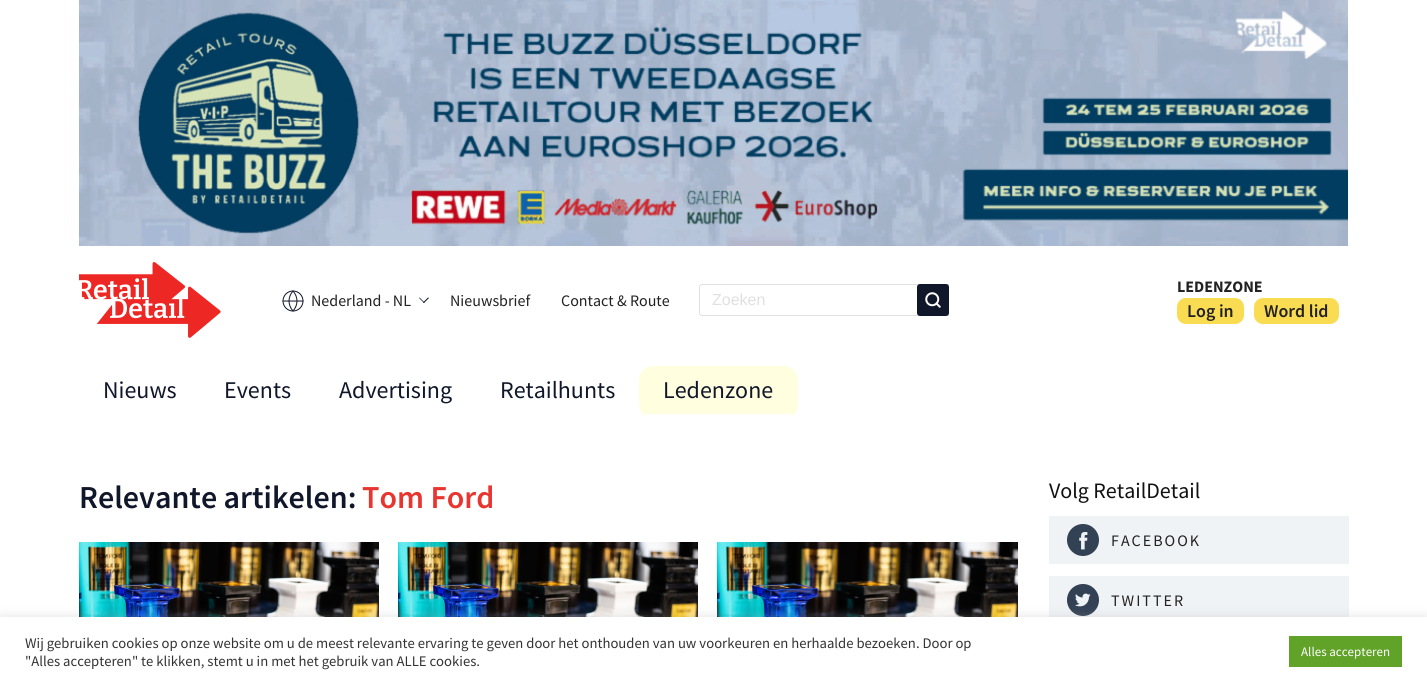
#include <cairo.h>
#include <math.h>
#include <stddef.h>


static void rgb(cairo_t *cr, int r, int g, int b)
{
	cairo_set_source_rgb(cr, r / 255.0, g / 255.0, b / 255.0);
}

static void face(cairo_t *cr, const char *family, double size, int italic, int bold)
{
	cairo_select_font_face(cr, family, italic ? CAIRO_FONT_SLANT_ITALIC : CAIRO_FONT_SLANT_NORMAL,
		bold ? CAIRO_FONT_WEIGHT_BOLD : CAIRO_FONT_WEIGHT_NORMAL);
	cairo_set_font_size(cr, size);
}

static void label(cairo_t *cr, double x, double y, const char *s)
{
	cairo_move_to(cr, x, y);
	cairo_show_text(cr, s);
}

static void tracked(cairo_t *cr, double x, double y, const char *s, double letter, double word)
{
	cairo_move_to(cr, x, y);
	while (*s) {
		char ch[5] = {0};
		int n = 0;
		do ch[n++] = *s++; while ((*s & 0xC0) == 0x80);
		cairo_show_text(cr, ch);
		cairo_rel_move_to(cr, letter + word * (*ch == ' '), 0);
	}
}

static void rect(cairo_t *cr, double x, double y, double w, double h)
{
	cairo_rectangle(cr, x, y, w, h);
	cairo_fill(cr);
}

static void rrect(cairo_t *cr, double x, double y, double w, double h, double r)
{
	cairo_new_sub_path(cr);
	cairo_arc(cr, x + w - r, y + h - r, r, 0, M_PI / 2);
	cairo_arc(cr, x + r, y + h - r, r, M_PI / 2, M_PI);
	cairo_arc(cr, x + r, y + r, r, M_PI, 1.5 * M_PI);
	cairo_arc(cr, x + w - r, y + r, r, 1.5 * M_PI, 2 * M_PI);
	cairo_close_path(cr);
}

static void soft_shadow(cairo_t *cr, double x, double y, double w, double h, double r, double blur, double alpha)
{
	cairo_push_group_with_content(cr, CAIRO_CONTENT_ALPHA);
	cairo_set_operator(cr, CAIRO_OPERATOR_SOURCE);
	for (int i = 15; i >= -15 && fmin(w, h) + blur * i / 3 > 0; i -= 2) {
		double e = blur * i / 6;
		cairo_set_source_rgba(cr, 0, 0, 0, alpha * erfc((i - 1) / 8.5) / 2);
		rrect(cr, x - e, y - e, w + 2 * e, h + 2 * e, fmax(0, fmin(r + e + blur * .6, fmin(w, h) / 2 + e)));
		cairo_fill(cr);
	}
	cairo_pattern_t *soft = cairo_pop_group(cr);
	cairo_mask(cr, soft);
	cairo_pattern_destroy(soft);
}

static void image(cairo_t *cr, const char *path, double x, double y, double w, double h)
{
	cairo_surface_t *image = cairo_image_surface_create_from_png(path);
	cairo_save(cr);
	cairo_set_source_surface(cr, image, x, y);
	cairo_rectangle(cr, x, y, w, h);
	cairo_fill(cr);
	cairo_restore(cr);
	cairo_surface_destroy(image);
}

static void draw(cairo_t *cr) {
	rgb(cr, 255, 255, 255);
	cairo_paint(cr);
	image(cr, "image0.png", 79, 0, 1269, 246);
	image(cr, "image1.png", 79, 262, 142, 76);
	image(cr, "image2.png", 282, 290, 22, 22);
	face(cr, "Source Sans Pro", 16, 0, 0);
	rgb(cr, 34, 34, 34);
	label(cr, 311, 306, "Nederland - NL");
	rgb(cr, 16, 23, 42);
	cairo_new_path(cr);
	cairo_move_to(cr, 429, 298);
	cairo_line_to(cr, 424, 303);
	cairo_line_to(cr, 423, 302.5);
	cairo_line_to(cr, 428, 297.5);
	cairo_close_path(cr);
	cairo_fill(cr);
	cairo_new_path(cr);
	cairo_move_to(cr, 424.5, 302.5);
	cairo_line_to(cr, 424, 303);
	cairo_line_to(cr, 419, 298);
	cairo_line_to(cr, 419.5, 297.5);
	cairo_close_path(cr);
	cairo_fill(cr);
	rgb(cr, 34, 34, 34);
	label(cr, 450, 306, "Nieuwsbrief");
	label(cr, 561, 306, "Contact & Route");
	cairo_new_path(cr);
	cairo_move_to(cr, 702, 284.5);
	cairo_line_to(cr, 948.5, 284.5);
	cairo_line_to(cr, 948.5, 315.5);
	cairo_line_to(cr, 702, 315.5);
	cairo_curve_to(cr, 700.5, 315.5, 699.5, 314.5, 699.5, 313);
	cairo_line_to(cr, 699.5, 287);
	cairo_curve_to(cr, 699.5, 285.5, 700.5, 284.5, 702, 284.5);
	cairo_close_path(cr);
	rgb(cr, 224, 224, 224);
	cairo_set_line_width(cr, 1);
	cairo_stroke(cr);
	face(cr, "Liberation Sans", 16, 0, 0);
	label(cr, 712, 305, "Zoeken");
	rgb(cr, 16, 23, 42);
	rrect(cr, 917, 284, 32, 32, 3);
	cairo_fill(cr);
	image(cr, "image3.png", 925, 292, 16, 16);
	face(cr, "Source Sans Pro", 16, 0, 1);
	rgb(cr, 34, 34, 34);
	label(cr, 1177, 292, "LEDENZONE");
	rgb(cr, 250, 220, 83);
	rrect(cr, 1177, 298, 67, 26, 9);
	cairo_fill(cr);
	face(cr, "Source Sans Pro SemiBold", 18, 0, 0);
	rgb(cr, 34, 34, 34);
	label(cr, 1187, 317, "Log in");
	rgb(cr, 250, 220, 83);
	rrect(cr, 1254, 298, 85, 26, 9);
	cairo_fill(cr);
	rgb(cr, 34, 34, 34);
	label(cr, 1264, 317, "Word lid");
	face(cr, "Source Sans Pro", 24, 0, 0);
	rgb(cr, 16, 23, 42);
	label(cr, 103, 398, "Nieuws");
	label(cr, 224, 398, "Events");
	label(cr, 339, 398, "Advertising");
	label(cr, 500, 398, "Retailhunts");
	rgb(cr, 255, 255, 224);
	rrect(cr, 639, 366, 159, 52, 14);
	cairo_fill(cr);
	rgb(cr, 255, 255, 255);
	rect(cr, 646, 414, 145, 4);
	rgb(cr, 16, 23, 42);
	label(cr, 663, 398, "Ledenzone");
	face(cr, "Source Sans Pro SemiBold", 32, 0, 0);
	label(cr, 79, 508, "Relevante artikelen:");
	rgb(cr, 233, 53, 48);
	label(cr, 362, 508, "Tom Ford");
	image(cr, "image4.png", 79, 542, 300, 75);
	image(cr, "image4.png", 398, 542, 300, 75);
	image(cr, "image5.png", 717, 542, 301, 75);
	face(cr, "Source Sans Pro", 22, 0, 0);
	rgb(cr, 17, 17, 17);
	label(cr, 1049, 498, "Volg RetailDetail");
	rgb(cr, 240, 243, 246);
	rect(cr, 1049, 516, 300, 48);
	image(cr, "image6.png", 1067, 524, 32, 32);
	face(cr, "Source Sans Pro", 16, 0, 0);
	rgb(cr, 34, 34, 34);
	tracked(cr, 1111, 546, "FACEBOOK", 2, 0);
	rgb(cr, 240, 243, 246);
	rect(cr, 1049, 576, 300, 41);
	image(cr, "image7.png", 1067, 584, 32, 32);
	rgb(cr, 34, 34, 34);
	tracked(cr, 1111, 606, "TWITTER", 2, 0);
	rgb(cr, 172, 171, 171);
	soft_shadow(cr, 0, 616, 1427, 69, 0, 5, 0.3);
	rgb(cr, 255, 255, 255);
	rect(cr, 0, 617, 1427, 69);
	face(cr, "Source Sans Pro", 14.67, 0, 0);
	rgb(cr, 51, 51, 51);
	label(cr, 25, 648, "Wij gebruiken cookies op onze website om u de meest relevante ervaring te geven door het onthouden van uw voorkeuren en herhaalde bezoeken. Door op");
	label(cr, 25, 666, "\"Alles accepteren\" te klikken, stemt u in met het gebruik van ALLE cookies.");
	rgb(cr, 97, 162, 41);
	rect(cr, 1289, 636, 113, 31);
	face(cr, "Source Sans Pro", 13, 0, 0);
	rgb(cr, 255, 255, 255);
	label(cr, 1301, 656, "Alles accepteren");
}

int main(void) {
	cairo_surface_t *surface = cairo_image_surface_create(CAIRO_FORMAT_RGB24, 1427, 686);
	cairo_t *cr = cairo_create(surface);
	cairo_font_options_t *options = cairo_font_options_create();
	cairo_font_options_set_hint_metrics(options, CAIRO_HINT_METRICS_OFF);
	cairo_font_options_set_hint_style(options, CAIRO_HINT_STYLE_NONE);
	cairo_set_font_options(cr, options);
	cairo_set_miter_limit(cr, 4);
	draw(cr);
	cairo_surface_write_to_png(surface, "render.png");
	cairo_font_options_destroy(options);
	cairo_destroy(cr);
	cairo_surface_destroy(surface);
	return 0;
}
